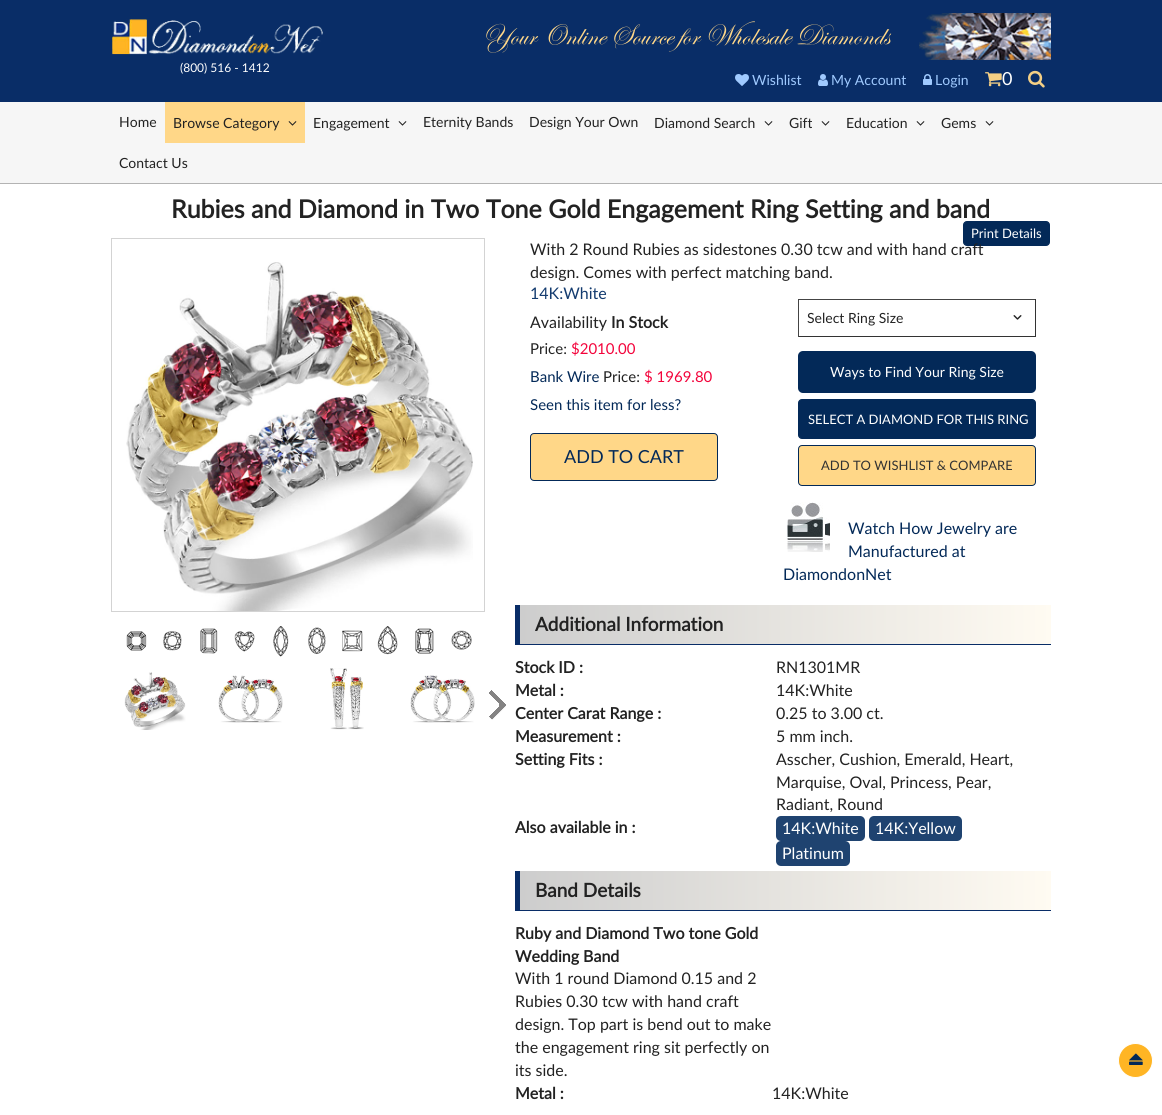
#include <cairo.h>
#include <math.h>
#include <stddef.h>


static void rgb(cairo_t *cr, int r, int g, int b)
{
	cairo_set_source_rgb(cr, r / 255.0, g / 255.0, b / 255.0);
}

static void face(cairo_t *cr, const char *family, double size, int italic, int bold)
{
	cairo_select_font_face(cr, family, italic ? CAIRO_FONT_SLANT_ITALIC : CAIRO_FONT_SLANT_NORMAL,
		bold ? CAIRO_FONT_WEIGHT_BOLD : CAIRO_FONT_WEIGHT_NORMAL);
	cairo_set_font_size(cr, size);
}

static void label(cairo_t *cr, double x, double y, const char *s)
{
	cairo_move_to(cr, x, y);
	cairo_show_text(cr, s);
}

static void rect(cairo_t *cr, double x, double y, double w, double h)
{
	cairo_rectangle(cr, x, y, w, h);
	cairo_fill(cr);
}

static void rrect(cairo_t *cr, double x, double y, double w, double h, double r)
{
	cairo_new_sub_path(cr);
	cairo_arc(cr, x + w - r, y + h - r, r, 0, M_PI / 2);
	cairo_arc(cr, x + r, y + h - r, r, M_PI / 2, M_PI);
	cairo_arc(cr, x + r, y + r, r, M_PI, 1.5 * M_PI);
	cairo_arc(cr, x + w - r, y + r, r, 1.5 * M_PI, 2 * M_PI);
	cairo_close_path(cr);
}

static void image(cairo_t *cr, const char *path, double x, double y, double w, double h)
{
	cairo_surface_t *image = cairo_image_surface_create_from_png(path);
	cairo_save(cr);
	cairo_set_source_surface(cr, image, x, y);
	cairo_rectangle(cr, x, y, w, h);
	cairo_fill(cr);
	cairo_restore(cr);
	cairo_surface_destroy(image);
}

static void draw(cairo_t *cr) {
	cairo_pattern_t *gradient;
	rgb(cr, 255, 255, 255);
	cairo_paint(cr);
	rgb(cr, 9, 45, 103);
	rect(cr, 0, 0, 1162, 102);
	face(cr, "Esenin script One", 30, 0, 0);
	rgb(cr, 255, 215, 136);
	label(cr, 483, 44, "Your Online Source for Wholesale Diamonds");
	image(cr, "image0.png", 919, 13, 132, 47);
	image(cr, "image1.png", 112, 19, 211, 36);
	face(cr, "Lato", 12, 0, 0);
	rgb(cr, 255, 255, 255);
	label(cr, 180, 72, "(800) 516 - 1412");
	image(cr, "image2.png", 735, 74, 14, 12);
	face(cr, "Lato", 14, 0, 0);
	rgb(cr, 160, 202, 255);
	label(cr, 752, 85, "Wishlist");
	image(cr, "image3.png", 818, 74, 10, 12);
	label(cr, 831, 85, "My Account");
	image(cr, "image4.png", 923, 74, 9, 11);
	label(cr, 935, 85, "Login");
	image(cr, "image5.png", 985, 72, 17, 15);
	face(cr, "Lato", 18, 0, 0);
	rgb(cr, 255, 255, 255);
	label(cr, 1002, 85, "0");
	image(cr, "image6.png", 1028, 70, 17, 18);
	rgb(cr, 179, 179, 179);
	rect(cr, 0, 183, 1162, 1);
	rgb(cr, 246, 246, 246);
	rect(cr, 0, 102, 1162, 81);
	face(cr, "Lato", 14, 0, 0);
	rgb(cr, 34, 34, 34);
	label(cr, 119, 127, "Home");
	rgb(cr, 255, 215, 136);
	rect(cr, 165, 102, 140, 41);
	rgb(cr, 34, 34, 34);
	label(cr, 173, 128, "Browse Category");
	image(cr, "image7.png", 288, 121, 9, 5);
	label(cr, 313, 128, "Engagement");
	image(cr, "image8.png", 398, 121, 9, 5);
	label(cr, 423, 127, "Eternity Bands");
	label(cr, 529, 127, "Design Your Own");
	label(cr, 654, 128, "Diamond Search");
	image(cr, "image8.png", 764, 121, 9, 5);
	label(cr, 789, 128, "Gift");
	image(cr, "image8.png", 821, 121, 9, 5);
	label(cr, 846, 128, "Education");
	image(cr, "image8.png", 916, 121, 9, 5);
	label(cr, 941, 128, "Gems");
	image(cr, "image8.png", 985, 121, 9, 5);
	label(cr, 119, 168, "Contact Us");
	face(cr, "Lato", 25, 0, 1);
	label(cr, 171, 218, "Rubies and Diamond in Two Tone Gold Engagement Ring Setting and band");
	rgb(cr, 3, 41, 88);
	rrect(cr, 963.5, 221.5, 86, 24, 3.5);
	cairo_fill_preserve(cr);
	cairo_set_line_width(cr, 1);
	cairo_stroke(cr);
	face(cr, "Lato", 13, 0, 0);
	rgb(cr, 255, 255, 255);
	label(cr, 971, 238, "Print Details");
	cairo_rectangle(cr, 111.5, 238.5, 373, 373);
	rgb(cr, 211, 211, 211);
	cairo_stroke(cr);
	image(cr, "image9.png", 126, 262, 347, 349);
	image(cr, "image10.png", 126, 631, 21, 20);
	image(cr, "image11.png", 163, 631, 19, 20);
	image(cr, "image12.png", 200, 628, 18, 26);
	image(cr, "image13.png", 234, 631, 21, 21);
	image(cr, "image14.png", 273, 626, 16, 31);
	image(cr, "image15.png", 308, 627, 18, 27);
	image(cr, "image16.png", 342, 630, 21, 22);
	image(cr, "image17.png", 377, 626, 21, 29);
	image(cr, "image18.png", 415, 628, 19, 26);
	image(cr, "image19.png", 451, 630, 21, 20);
	image(cr, "image20.png", 124, 672, 62, 58);
	image(cr, "image21.png", 218, 675, 65, 48);
	image(cr, "image22.png", 330, 668, 34, 62);
	image(cr, "image23.png", 410, 675, 65, 48);
	image(cr, "image24.png", 489, 690, 17, 30);
	face(cr, "Lato", 16, 0, 0);
	rgb(cr, 34, 34, 34);
	label(cr, 530, 255, "With 2 Round Rubies as sidestones 0.30 tcw and with hand craft");
	label(cr, 530, 278, "design. Comes with perfect matching band.");
	rgb(cr, 19, 59, 111);
	label(cr, 530, 299, "14K:White");
	rgb(cr, 34, 34, 34);
	label(cr, 530, 328, "Availability");
	face(cr, "Lato", 16, 0, 1);
	label(cr, 611, 328, "In Stock");
	face(cr, "Lato", 15, 0, 0);
	label(cr, 530, 354, "Price:");
	rgb(cr, 243, 3, 59);
	label(cr, 571, 354, "$2010.00");
	rgb(cr, 3, 41, 88);
	label(cr, 530, 382, "Bank Wire");
	rgb(cr, 34, 34, 34);
	label(cr, 603, 382, "Price:");
	rgb(cr, 243, 3, 59);
	label(cr, 644, 382, "$ 1969.80");
	rgb(cr, 3, 41, 88);
	label(cr, 530, 410, "Seen this item for less?");
	rgb(cr, 255, 215, 136);
	rrect(cr, 530.5, 433.5, 187, 47, 3.5);
	cairo_fill_preserve(cr);
	rgb(cr, 3, 41, 88);
	cairo_stroke(cr);
	face(cr, "Lato", 18, 0, 0);
	label(cr, 564, 463, "ADD TO CART");
	image(cr, "image25.png", 1013, 315, 9, 5);
	rgb(cr, 68, 68, 68);
	rect(cr, 798, 299, 238, 1);
	rgb(cr, 51, 51, 51);
	rect(cr, 1035, 299, 1, 38);
	rect(cr, 798, 336, 238, 1);
	rgb(cr, 68, 68, 68);
	rect(cr, 798, 299, 1, 38);
	face(cr, "Lato", 14, 0, 0);
	rgb(cr, 34, 34, 34);
	label(cr, 807, 323, "Select Ring Size");
	rgb(cr, 3, 41, 88);
	rrect(cr, 798, 351, 238, 42, 5);
	cairo_fill(cr);
	rgb(cr, 255, 255, 255);
	label(cr, 830, 377, "Ways to Find Your Ring Size");
	rgb(cr, 3, 41, 88);
	rrect(cr, 798.5, 399.5, 237, 39, 3.5);
	cairo_fill_preserve(cr);
	cairo_stroke(cr);
	face(cr, "Lato", 13, 0, 0);
	rgb(cr, 255, 255, 255);
	label(cr, 808, 424, "SELECT A DIAMOND FOR THIS RING");
	rgb(cr, 255, 215, 136);
	rrect(cr, 798.5, 445.5, 237, 40, 3.5);
	cairo_fill_preserve(cr);
	rgb(cr, 3, 41, 88);
	cairo_stroke(cr);
	rgb(cr, 51, 51, 51);
	label(cr, 821, 470, "ADD TO WISHLIST & COMPARE");
	image(cr, "image26.png", 786, 502, 44, 50);
	face(cr, "Lato", 16, 0, 0);
	rgb(cr, 3, 41, 88);
	label(cr, 848, 534, "Watch How Jewelry are");
	label(cr, 848, 557, "Manufactured at");
	label(cr, 783, 580, "DiamondonNet");
	gradient = cairo_pattern_create_linear(520, 625, 1051, 625);
	cairo_pattern_add_color_stop_rgba(gradient, 0, 0.804, 0.804, 0.804, 1);
	cairo_pattern_add_color_stop_rgba(gradient, 1, 1, 0.984, 0.949, 1);
	cairo_set_source(cr, gradient);
	cairo_pattern_destroy(gradient);
	rect(cr, 520, 605, 531, 39);
	rgb(cr, 9, 45, 103);
	rect(cr, 515, 644, 536, 1);
	rect(cr, 515, 605, 5, 40);
	face(cr, "Lato", 19, 0, 1);
	rgb(cr, 34, 34, 34);
	label(cr, 535, 631, "Additional Information");
	face(cr, "Lato", 16, 0, 1);
	label(cr, 515, 673, "Stock ID :");
	face(cr, "Lato", 16, 0, 0);
	label(cr, 776, 673, "RN1301MR");
	face(cr, "Lato", 16, 0, 1);
	label(cr, 515, 696, "Metal :");
	face(cr, "Lato", 16, 0, 0);
	label(cr, 776, 696, "14K:White");
	face(cr, "Lato", 16, 0, 1);
	label(cr, 515, 719, "Center Carat Range :");
	face(cr, "Lato", 16, 0, 0);
	label(cr, 776, 719, "0.25 to 3.00 ct.");
	face(cr, "Lato", 16, 0, 1);
	label(cr, 515, 742, "Measurement :");
	face(cr, "Lato", 16, 0, 0);
	label(cr, 776, 742, "5 mm inch.");
	face(cr, "Lato", 16, 0, 1);
	label(cr, 515, 765, "Setting Fits :");
	face(cr, "Lato", 16, 0, 0);
	label(cr, 776, 765, "Asscher, Cushion, Emerald, Heart,");
	label(cr, 776, 788, "Marquise, Oval, Princess, Pear,");
	label(cr, 776, 810, "Radiant, Round");
	face(cr, "Lato", 16, 0, 1);
	label(cr, 515, 833, "Also available in :");
	rgb(cr, 31, 67, 112);
	rrect(cr, 776, 816, 89, 25, 5);
	cairo_fill(cr);
	face(cr, "Lato", 16, 0, 0);
	rgb(cr, 255, 255, 255);
	label(cr, 782, 834, "14K:White");
	rgb(cr, 31, 67, 112);
	rrect(cr, 869, 816, 93, 25, 5);
	cairo_fill(cr);
	rgb(cr, 255, 255, 255);
	label(cr, 875, 834, "14K:Yellow");
	rgb(cr, 31, 67, 112);
	rrect(cr, 776, 841, 74, 25, 5);
	cairo_fill(cr);
	rgb(cr, 255, 255, 255);
	label(cr, 782, 859, "Platinum");
	gradient = cairo_pattern_create_linear(520, 891, 1051, 891);
	cairo_pattern_add_color_stop_rgba(gradient, 0, 0.804, 0.804, 0.804, 1);
	cairo_pattern_add_color_stop_rgba(gradient, 1, 1, 0.984, 0.949, 1);
	cairo_set_source(cr, gradient);
	cairo_pattern_destroy(gradient);
	rect(cr, 520, 871, 531, 39);
	rgb(cr, 9, 45, 103);
	rect(cr, 515, 910, 536, 1);
	rect(cr, 515, 871, 5, 40);
	face(cr, "Lato", 19, 0, 1);
	rgb(cr, 34, 34, 34);
	label(cr, 535, 897, "Band Details");
	face(cr, "Lato", 16, 0, 1);
	label(cr, 515, 939, "Ruby and Diamond Two tone Gold");
	label(cr, 515, 962, "Wedding Band");
	face(cr, "Lato", 16, 0, 0);
	label(cr, 515, 984, "With 1 round Diamond 0.15 and 2");
	label(cr, 515, 1007, "Rubies 0.30 tcw with hand craft");
	label(cr, 515, 1030, "design. Top part is bend out to make");
	label(cr, 515, 1053, "the engagement ring sit perfectly on");
	label(cr, 515, 1076, "its side.");
	face(cr, "Lato", 16, 0, 1);
	label(cr, 515, 1099, "Metal :");
	face(cr, "Lato", 16, 0, 0);
	label(cr, 772, 1099, "14K:White");
	rgb(cr, 255, 181, 36);
	cairo_new_path(cr);
	cairo_arc(cr, 1135.5, 1060.5, 17, 0, 2 * M_PI);
	cairo_fill_preserve(cr);
	rgb(cr, 255, 255, 255);
	cairo_stroke(cr);
	image(cr, "image27.png", 1129, 1053, 14, 12);
}

int main(void) {
	cairo_surface_t *surface = cairo_image_surface_create(CAIRO_FORMAT_RGB24, 1162, 1115);
	cairo_t *cr = cairo_create(surface);
	cairo_font_options_t *options = cairo_font_options_create();
	cairo_font_options_set_hint_metrics(options, CAIRO_HINT_METRICS_OFF);
	cairo_font_options_set_hint_style(options, CAIRO_HINT_STYLE_NONE);
	cairo_set_font_options(cr, options);
	cairo_set_miter_limit(cr, 4);
	draw(cr);
	cairo_surface_write_to_png(surface, "render.png");
	cairo_font_options_destroy(options);
	cairo_destroy(cr);
	cairo_surface_destroy(surface);
	return 0;
}
